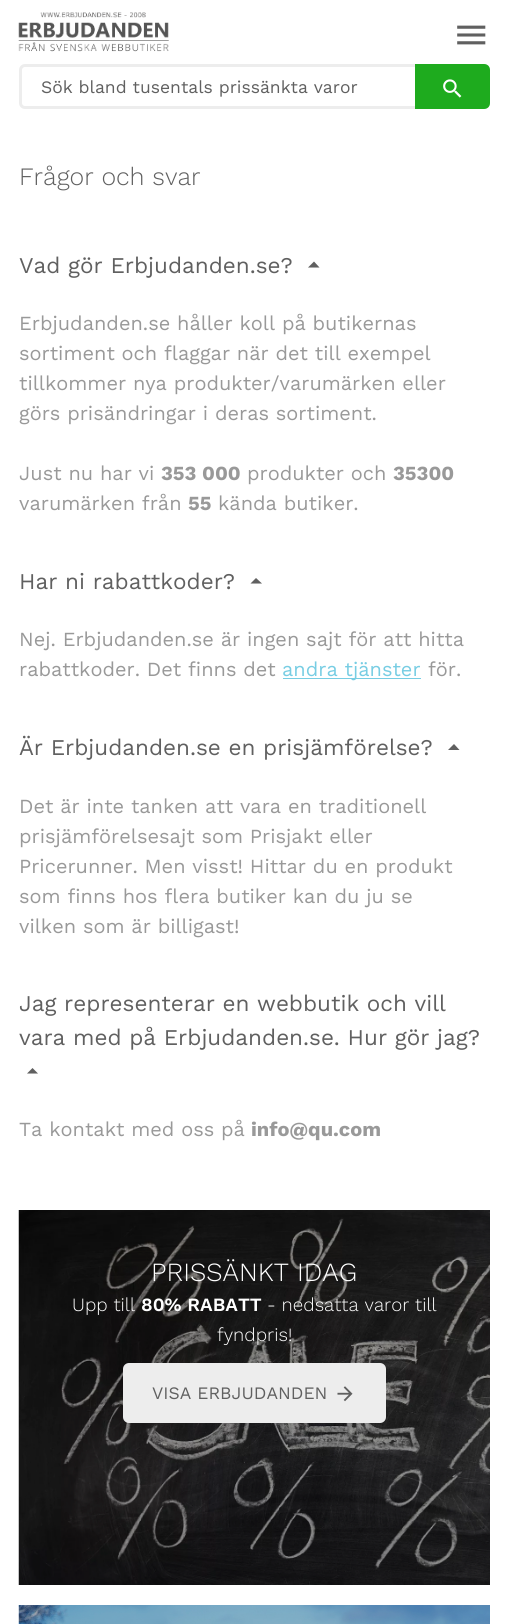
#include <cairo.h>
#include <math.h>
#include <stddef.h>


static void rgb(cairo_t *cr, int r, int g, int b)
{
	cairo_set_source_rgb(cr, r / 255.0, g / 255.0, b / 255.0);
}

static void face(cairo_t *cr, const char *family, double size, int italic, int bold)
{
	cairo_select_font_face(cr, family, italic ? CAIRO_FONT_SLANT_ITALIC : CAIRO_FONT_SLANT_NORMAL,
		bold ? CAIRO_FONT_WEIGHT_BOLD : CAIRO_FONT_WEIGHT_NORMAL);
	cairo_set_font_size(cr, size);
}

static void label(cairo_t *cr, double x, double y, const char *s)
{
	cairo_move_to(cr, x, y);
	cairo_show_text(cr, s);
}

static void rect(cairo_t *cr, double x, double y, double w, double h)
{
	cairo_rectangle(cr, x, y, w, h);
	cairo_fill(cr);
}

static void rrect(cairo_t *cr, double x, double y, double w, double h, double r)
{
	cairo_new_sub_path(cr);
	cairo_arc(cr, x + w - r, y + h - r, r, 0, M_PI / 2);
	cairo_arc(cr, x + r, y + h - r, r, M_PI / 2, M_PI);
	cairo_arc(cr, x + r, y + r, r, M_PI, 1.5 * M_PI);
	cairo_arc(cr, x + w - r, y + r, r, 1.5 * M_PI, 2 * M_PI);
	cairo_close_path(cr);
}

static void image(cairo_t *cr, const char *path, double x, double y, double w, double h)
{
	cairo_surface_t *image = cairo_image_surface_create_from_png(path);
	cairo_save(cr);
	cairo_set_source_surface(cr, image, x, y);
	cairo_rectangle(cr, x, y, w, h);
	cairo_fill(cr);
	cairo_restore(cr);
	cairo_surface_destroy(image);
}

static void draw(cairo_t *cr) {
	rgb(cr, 255, 255, 255);
	cairo_paint(cr);
	image(cr, "image0.png", 18, 12, 151, 40);
	image(cr, "image1.png", 457, 25, 29, 20);
	rrect(cr, 20.5, 65.5, 468, 42, 4.5);
	rgb(cr, 237, 237, 237);
	cairo_set_line_width(cr, 3);
	cairo_stroke(cr);
	face(cr, "Work Sans", 17.5, 0, 0);
	rgb(cr, 96, 96, 96);
	label(cr, 41, 93, "Sök bland tusentals prissänkta varor");
	rgb(cr, 30, 171, 30);
	cairo_new_path(cr);
	cairo_move_to(cr, 415, 64);
	cairo_line_to(cr, 484, 64);
	cairo_curve_to(cr, 487.5, 64, 490, 66.5, 490, 70);
	cairo_line_to(cr, 490, 103);
	cairo_curve_to(cr, 490, 106.5, 487.5, 109, 484, 109);
	cairo_line_to(cr, 415, 109);
	cairo_close_path(cr);
	cairo_fill(cr);
	image(cr, "image2.png", 443, 79, 19, 19);
	face(cr, "Work Sans Light", 25, 0, 0);
	rgb(cr, 96, 96, 96);
	label(cr, 19, 185, "Frågor och svar");
	face(cr, "Work Sans", 22.5, 0, 0);
	label(cr, 19, 273, "Vad gör Erbjudanden.se?");
	cairo_new_path(cr);
	cairo_move_to(cr, 308, 267.5);
	cairo_line_to(cr, 314, 261.5);
	cairo_line_to(cr, 319.5, 267.5);
	cairo_close_path(cr);
	cairo_fill(cr);
	face(cr, "Work Sans", 20, 0, 0);
	rgb(cr, 153, 153, 153);
	label(cr, 19, 330, "Erbjudanden.se håller koll på butikernas");
	label(cr, 19, 360, "sortiment och flaggar när det till exempel");
	label(cr, 19, 390, "tillkommer nya produkter/varumärken eller");
	label(cr, 19, 420, "görs prisändringar i deras sortiment.");
	label(cr, 19, 480, "Just nu har vi");
	face(cr, "Work Sans", 20, 0, 1);
	label(cr, 161, 480, "353 000");
	face(cr, "Work Sans", 20, 0, 0);
	label(cr, 247, 480, "produkter och");
	face(cr, "Work Sans", 20, 0, 1);
	label(cr, 393, 480, "35300");
	face(cr, "Work Sans", 20, 0, 0);
	label(cr, 19, 510, "varumärken från");
	face(cr, "Work Sans", 20, 0, 1);
	label(cr, 188, 510, "55");
	face(cr, "Work Sans", 20, 0, 0);
	label(cr, 218, 510, "kända butiker.");
	face(cr, "Work Sans", 22.5, 0, 0);
	rgb(cr, 96, 96, 96);
	label(cr, 19, 589, "Har ni rabattkoder?");
	cairo_new_path(cr);
	cairo_move_to(cr, 250.5, 583.5);
	cairo_line_to(cr, 256, 578);
	cairo_line_to(cr, 262, 583.5);
	cairo_close_path(cr);
	cairo_fill(cr);
	face(cr, "Work Sans", 20, 0, 0);
	rgb(cr, 153, 153, 153);
	label(cr, 19, 646, "Nej. Erbjudanden.se är ingen sajt för att hitta");
	label(cr, 19, 676, "rabattkoder. Det finns det");
	rgb(cr, 119, 205, 227);
	rect(cr, 283, 678, 138, 1);
	label(cr, 282, 676, "andra tjänster");
	rgb(cr, 153, 153, 153);
	label(cr, 428, 676, "för.");
	face(cr, "Work Sans", 22.5, 0, 0);
	rgb(cr, 96, 96, 96);
	label(cr, 19, 755, "Är Erbjudanden.se en prisjämförelse?");
	cairo_new_path(cr);
	cairo_move_to(cr, 448, 750);
	cairo_line_to(cr, 454, 744);
	cairo_line_to(cr, 459.5, 750);
	cairo_close_path(cr);
	cairo_fill(cr);
	face(cr, "Work Sans", 20, 0, 0);
	rgb(cr, 153, 153, 153);
	label(cr, 19, 813, "Det är inte tanken att vara en traditionell");
	label(cr, 19, 843, "prisjämförelsesajt som Prisjakt eller");
	label(cr, 19, 873, "Pricerunner. Men visst! Hittar du en produkt");
	label(cr, 19, 903, "som finns hos flera butiker kan du ju se");
	label(cr, 19, 933, "vilken som är billigast!");
	face(cr, "Work Sans", 22.5, 0, 0);
	rgb(cr, 96, 96, 96);
	label(cr, 19, 1011, "Jag representerar en webbutik och vill");
	label(cr, 19, 1045, "vara med på Erbjudanden.se. Hur gör jag?");
	cairo_new_path(cr);
	cairo_move_to(cr, 27, 1073.5);
	cairo_line_to(cr, 32.5, 1068);
	cairo_line_to(cr, 38, 1073.5);
	cairo_close_path(cr);
	cairo_fill(cr);
	face(cr, "Work Sans", 20, 0, 0);
	rgb(cr, 153, 153, 153);
	label(cr, 19, 1136, "Ta kontakt med oss på");
	face(cr, "Work Sans", 20, 0, 1);
	label(cr, 251, 1136, "info@qu.com");
	image(cr, "image3.png", 18, 1210, 472, 375);
	face(cr, "Work Sans Light", 26.25, 0, 0);
	rgb(cr, 255, 255, 255);
	label(cr, 151, 1281, "PRISSÄNKT IDAG");
	face(cr, "Work Sans Light", 18.75, 0, 0);
	label(cr, 72, 1311, "Upp till");
	face(cr, "Work Sans SemiBold", 18.75, 0, 0);
	label(cr, 141, 1311, "80% RABATT");
	face(cr, "Work Sans Light", 18.75, 0, 0);
	label(cr, 267, 1311, "- nedsatta varor till");
	label(cr, 217, 1341, "fyndpris!");
	rgb(cr, 237, 237, 237);
	rrect(cr, 123, 1363, 263, 60, 6);
	cairo_fill(cr);
	face(cr, "Work Sans", 17.5, 0, 0);
	rgb(cr, 96, 96, 96);
	label(cr, 152, 1399, "VISA ERBJUDANDEN");
	image(cr, "image4.png", 337, 1386, 16, 16);
	image(cr, "image5.png", 18, 1605, 472, 19);
}

int main(void) {
	cairo_surface_t *surface = cairo_image_surface_create(CAIRO_FORMAT_RGB24, 508, 1624);
	cairo_t *cr = cairo_create(surface);
	cairo_font_options_t *options = cairo_font_options_create();
	cairo_font_options_set_hint_metrics(options, CAIRO_HINT_METRICS_OFF);
	cairo_font_options_set_hint_style(options, CAIRO_HINT_STYLE_NONE);
	cairo_set_font_options(cr, options);
	cairo_set_miter_limit(cr, 4);
	draw(cr);
	cairo_surface_write_to_png(surface, "render.png");
	cairo_font_options_destroy(options);
	cairo_destroy(cr);
	cairo_surface_destroy(surface);
	return 0;
}
